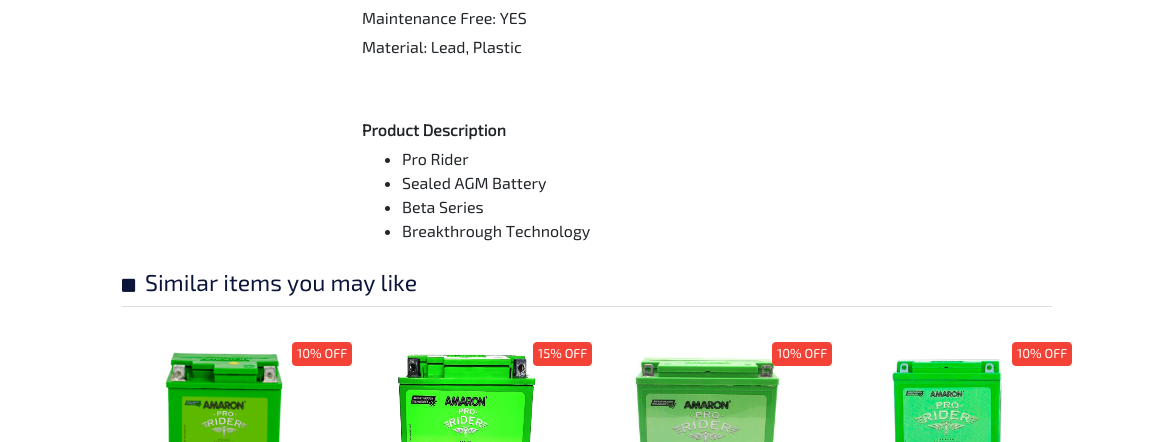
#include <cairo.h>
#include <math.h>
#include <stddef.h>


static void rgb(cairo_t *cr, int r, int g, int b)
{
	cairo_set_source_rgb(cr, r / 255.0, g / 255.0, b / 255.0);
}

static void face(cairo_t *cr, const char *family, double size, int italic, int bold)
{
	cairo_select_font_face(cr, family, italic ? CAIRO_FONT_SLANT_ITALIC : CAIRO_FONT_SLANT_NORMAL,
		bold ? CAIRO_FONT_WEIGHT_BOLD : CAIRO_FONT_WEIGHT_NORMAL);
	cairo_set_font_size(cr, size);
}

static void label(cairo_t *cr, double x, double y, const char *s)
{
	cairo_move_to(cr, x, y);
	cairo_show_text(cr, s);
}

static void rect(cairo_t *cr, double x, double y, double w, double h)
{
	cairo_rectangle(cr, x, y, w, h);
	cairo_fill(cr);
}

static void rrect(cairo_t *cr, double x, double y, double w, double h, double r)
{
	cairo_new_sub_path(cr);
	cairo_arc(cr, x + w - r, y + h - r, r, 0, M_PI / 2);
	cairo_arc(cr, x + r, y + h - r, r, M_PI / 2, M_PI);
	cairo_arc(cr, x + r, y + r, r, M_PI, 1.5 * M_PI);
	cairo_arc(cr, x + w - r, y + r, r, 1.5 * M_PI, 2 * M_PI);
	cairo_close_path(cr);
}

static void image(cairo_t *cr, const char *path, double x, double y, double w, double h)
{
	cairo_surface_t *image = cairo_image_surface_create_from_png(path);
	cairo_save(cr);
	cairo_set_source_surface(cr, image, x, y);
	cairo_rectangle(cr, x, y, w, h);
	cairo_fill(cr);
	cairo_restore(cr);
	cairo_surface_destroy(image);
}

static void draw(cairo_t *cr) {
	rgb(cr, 255, 255, 255);
	cairo_paint(cr);
	face(cr, "Exo 2", 16, 0, 0);
	rgb(cr, 33, 37, 41);
	label(cr, 362, 24, "Maintenance Free: YES");
	label(cr, 362, 53, "Material: Lead, Plastic");
	face(cr, "Exo 2", 16, 0, 1);
	label(cr, 362, 136, "Product Description");
	cairo_new_path(cr);
	cairo_arc(cr, 387.5, 160.5, 2.5, 0, 2 * M_PI);
	cairo_fill(cr);
	face(cr, "Exo 2", 16, 0, 0);
	label(cr, 402, 165, "Pro Rider");
	cairo_new_path(cr);
	cairo_arc(cr, 387.5, 184.5, 2.5, 0, 2 * M_PI);
	cairo_fill(cr);
	label(cr, 402, 189, "Sealed AGM Battery");
	cairo_new_path(cr);
	cairo_arc(cr, 387.5, 208.5, 2.5, 0, 2 * M_PI);
	cairo_fill(cr);
	label(cr, 402, 213, "Beta Series");
	cairo_new_path(cr);
	cairo_arc(cr, 387.5, 232.5, 2.5, 0, 2 * M_PI);
	cairo_fill(cr);
	label(cr, 402, 237, "Breakthrough Technology");
	rgb(cr, 221, 221, 221);
	rect(cr, 122, 306, 930, 1);
	image(cr, "image0.png", 122, 278, 14, 14);
	face(cr, "Exo 2", 23, 0, 0);
	rgb(cr, 11, 21, 57);
	label(cr, 145, 291, "Similar items you may like");
	image(cr, "image1.png", 165, 352, 118, 90);
	rgb(cr, 244, 67, 54);
	rrect(cr, 292, 342, 60, 24, 4);
	cairo_fill(cr);
	face(cr, "Exo 2", 13, 0, 0);
	rgb(cr, 255, 255, 255);
	label(cr, 297, 358, "10% OFF");
	image(cr, "image2.png", 398, 354, 138, 88);
	rgb(cr, 244, 67, 54);
	rrect(cr, 533, 342, 59, 24, 4);
	cairo_fill(cr);
	rgb(cr, 255, 255, 255);
	label(cr, 538, 358, "15% OFF");
	image(cr, "image3.png", 632, 356, 149, 86);
	rgb(cr, 244, 67, 54);
	rrect(cr, 772, 342, 60, 24, 4);
	cairo_fill(cr);
	rgb(cr, 255, 255, 255);
	label(cr, 777, 358, "10% OFF");
	rgb(cr, 244, 67, 54);
	rrect(cr, 1012, 342, 60, 24, 4);
	cairo_fill(cr);
	rgb(cr, 255, 255, 255);
	label(cr, 1017, 358, "10% OFF");
	image(cr, "image4.png", 891, 359, 111, 83);
}

int main(void) {
	cairo_surface_t *surface = cairo_image_surface_create(CAIRO_FORMAT_RGB24, 1174, 442);
	cairo_t *cr = cairo_create(surface);
	cairo_font_options_t *options = cairo_font_options_create();
	cairo_font_options_set_hint_metrics(options, CAIRO_HINT_METRICS_OFF);
	cairo_font_options_set_hint_style(options, CAIRO_HINT_STYLE_NONE);
	cairo_set_font_options(cr, options);
	cairo_set_miter_limit(cr, 4);
	draw(cr);
	cairo_surface_write_to_png(surface, "render.png");
	cairo_font_options_destroy(options);
	cairo_destroy(cr);
	cairo_surface_destroy(surface);
	return 0;
}
